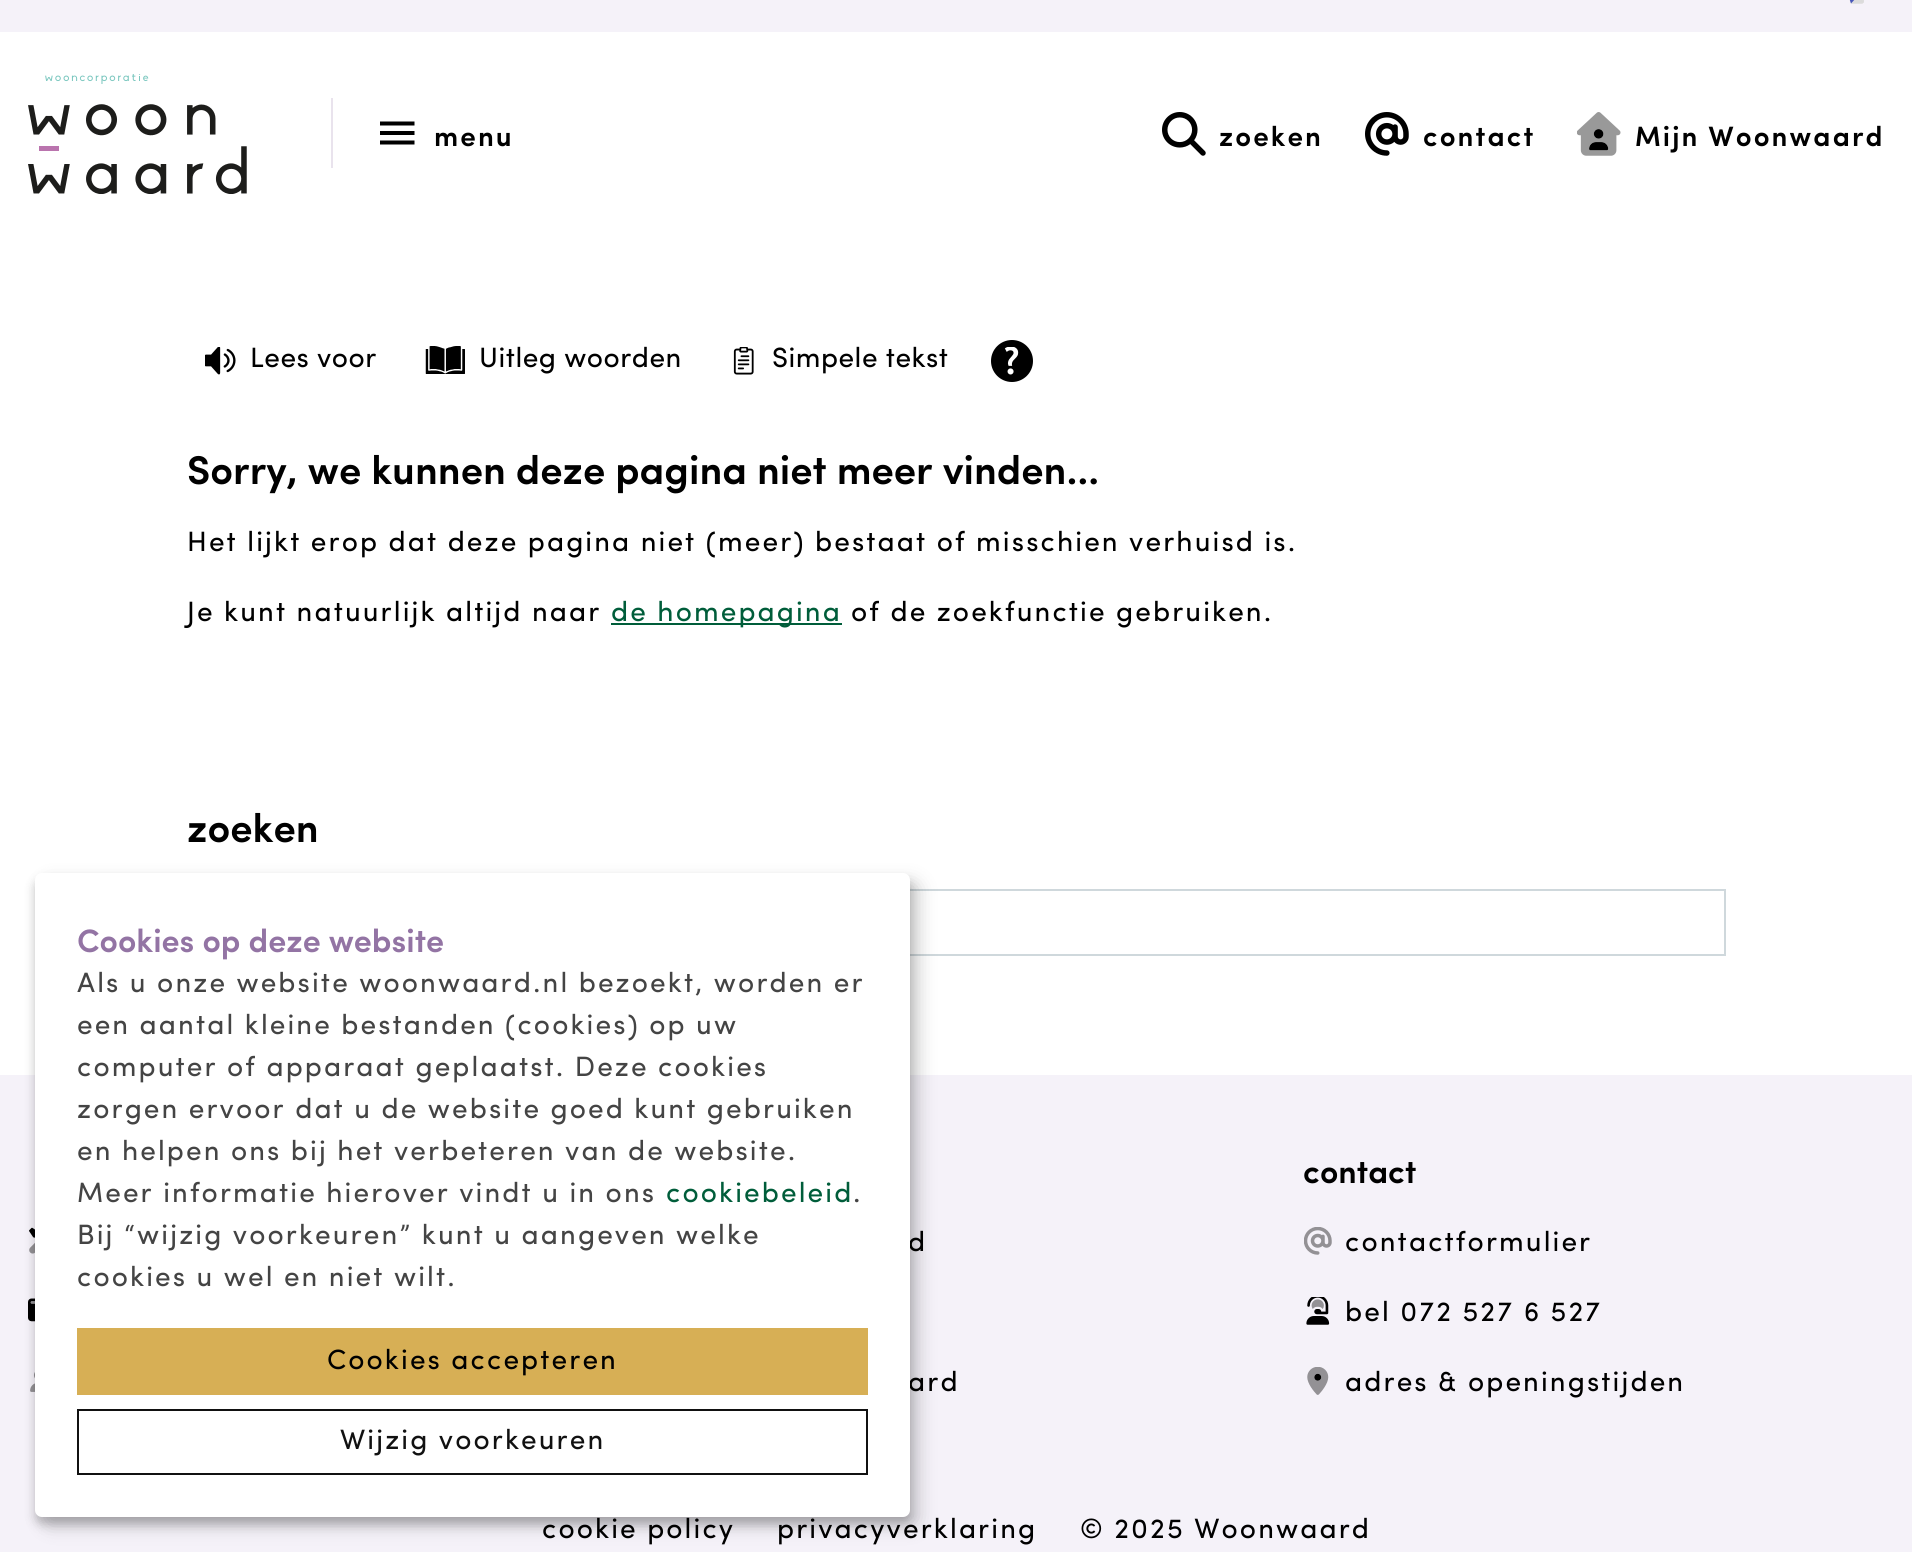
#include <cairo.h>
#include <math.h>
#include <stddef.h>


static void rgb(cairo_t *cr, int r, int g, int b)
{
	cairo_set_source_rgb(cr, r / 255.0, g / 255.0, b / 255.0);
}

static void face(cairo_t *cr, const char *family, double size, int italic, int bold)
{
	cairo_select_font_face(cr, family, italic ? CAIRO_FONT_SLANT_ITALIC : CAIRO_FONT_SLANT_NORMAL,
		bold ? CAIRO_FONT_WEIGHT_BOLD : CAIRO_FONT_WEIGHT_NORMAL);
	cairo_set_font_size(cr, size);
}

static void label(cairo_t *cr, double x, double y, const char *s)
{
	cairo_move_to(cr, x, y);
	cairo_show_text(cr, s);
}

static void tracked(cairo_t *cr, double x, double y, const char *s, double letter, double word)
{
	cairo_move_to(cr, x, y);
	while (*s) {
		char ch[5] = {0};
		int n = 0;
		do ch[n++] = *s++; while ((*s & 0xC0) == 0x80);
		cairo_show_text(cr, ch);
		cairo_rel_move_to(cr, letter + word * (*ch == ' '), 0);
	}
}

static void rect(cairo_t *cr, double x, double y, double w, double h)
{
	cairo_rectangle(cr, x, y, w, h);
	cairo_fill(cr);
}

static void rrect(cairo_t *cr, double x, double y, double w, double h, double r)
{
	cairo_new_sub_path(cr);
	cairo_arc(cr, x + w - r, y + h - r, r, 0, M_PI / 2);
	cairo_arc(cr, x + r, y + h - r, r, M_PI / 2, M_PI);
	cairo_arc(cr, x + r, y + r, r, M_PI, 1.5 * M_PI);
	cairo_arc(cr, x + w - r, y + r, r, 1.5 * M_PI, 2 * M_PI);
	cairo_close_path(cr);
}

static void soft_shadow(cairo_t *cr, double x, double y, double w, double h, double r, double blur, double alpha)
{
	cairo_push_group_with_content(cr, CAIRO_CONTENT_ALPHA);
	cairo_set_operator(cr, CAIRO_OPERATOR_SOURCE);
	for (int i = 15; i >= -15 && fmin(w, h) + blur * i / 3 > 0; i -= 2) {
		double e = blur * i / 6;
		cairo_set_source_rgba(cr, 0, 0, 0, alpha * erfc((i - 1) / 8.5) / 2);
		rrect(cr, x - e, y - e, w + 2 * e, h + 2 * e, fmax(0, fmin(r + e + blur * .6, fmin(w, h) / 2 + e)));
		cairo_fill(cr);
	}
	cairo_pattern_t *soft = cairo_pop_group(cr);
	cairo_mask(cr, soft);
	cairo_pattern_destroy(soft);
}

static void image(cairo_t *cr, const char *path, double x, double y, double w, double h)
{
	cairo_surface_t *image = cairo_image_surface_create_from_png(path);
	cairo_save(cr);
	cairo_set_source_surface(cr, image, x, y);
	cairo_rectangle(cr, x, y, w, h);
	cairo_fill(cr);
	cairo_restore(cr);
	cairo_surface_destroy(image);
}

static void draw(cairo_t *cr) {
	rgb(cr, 255, 255, 255);
	cairo_paint(cr);
	rgb(cr, 245, 242, 249);
	rect(cr, 0, 0, 1912, 32);
	image(cr, "image0.png", 1849, 0, 15, 4);
	image(cr, "image1.png", 28, 74, 219, 120);
	rgb(cr, 233, 227, 237);
	rect(cr, 331, 98, 2, 70);
	rgb(cr, 0, 0, 0);
	cairo_new_path(cr);
	cairo_move_to(cr, 380, 144.5);
	cairo_line_to(cr, 414.5, 144.5);
	cairo_line_to(cr, 414.5, 140.5);
	cairo_line_to(cr, 380, 140.5);
	cairo_close_path(cr);
	cairo_move_to(cr, 380, 135);
	cairo_line_to(cr, 414.5, 135);
	cairo_line_to(cr, 414.5, 131);
	cairo_line_to(cr, 380, 131);
	cairo_close_path(cr);
	cairo_move_to(cr, 380, 121.5);
	cairo_line_to(cr, 380, 125.5);
	cairo_line_to(cr, 414.5, 125.5);
	cairo_line_to(cr, 414.5, 121.5);
	cairo_close_path(cr);
	cairo_fill(cr);
	face(cr, "Sofia SemiBold", 28, 0, 0);
	tracked(cr, 434, 146, "menu", 2.1, 0);
	image(cr, "image2.png", 1162, 112, 44, 44);
	tracked(cr, 1219, 146, "zoeken", 2.1, 0);
	image(cr, "image3.png", 1365, 112, 44, 44);
	tracked(cr, 1423, 146, "contact", 2.1, 0);
	image(cr, "image4.png", 1577, 112, 44, 44);
	tracked(cr, 1635, 146, "Mijn Woonwaard", 2.1, 0);
	image(cr, "image5.png", 205, 347, 31, 28);
	face(cr, "Sofia", 28, 0, 0);
	tracked(cr, 250, 367, "Lees voor", 0.5, 0);
	image(cr, "image6.png", 425, 346, 40, 28);
	tracked(cr, 479, 367, "Uitleg woorden", 0.5, 0);
	image(cr, "image7.png", 733, 347, 21, 28);
	tracked(cr, 772, 367, "Simpele tekst", 0.5, 0);
	cairo_new_path(cr);
	cairo_arc(cr, 1012, 361, 21, 0, 2 * M_PI);
	cairo_fill(cr);
	image(cr, "image8.png", 1004, 347, 15, 28);
	face(cr, "Sofia SemiBold", 40.3, 0, 0);
	label(cr, 187, 484, "Sorry, we kunnen deze pagina niet meer vinden…");
	face(cr, "Sofia", 28, 0, 0);
	tracked(cr, 187, 551, "Het lijkt erop dat deze pagina niet (meer) bestaat of misschien verhuisd is.", 2.1, 0);
	tracked(cr, 187, 621, "Je kunt natuurlijk altijd naar", 2.1, 0);
	rgb(cr, 0, 93, 58);
	rect(cr, 611, 623, 231, 2);
	tracked(cr, 611, 621, "de homepagina", 2.1, 0);
	rgb(cr, 0, 0, 0);
	tracked(cr, 851, 621, "of de zoekfunctie gebruiken.", 2.1, 0);
	face(cr, "Sofia SemiBold", 40.3, 0, 0);
	label(cr, 187, 842, "zoeken");
	cairo_rectangle(cr, 188, 890, 1537, 65);
	rgb(cr, 207, 216, 220);
	cairo_stroke(cr);
	rgb(cr, 245, 242, 249);
	rect(cr, 0, 1075, 1912, 477);
	image(cr, "image9.png", 29, 1227, 6, 27);
	image(cr, "image10.png", 28, 1298, 7, 24);
	image(cr, "image11.png", 30, 1372, 5, 20);
	rgb(cr, 0, 0, 0);
	soft_shadow(cr, 44, 882, 875, 644, 7, 9, 0.19);
	soft_shadow(cr, 35, 880, 875, 644, 7, 5, 0.2);
	face(cr, "Sofia", 28, 0, 0);
	rgb(cr, 0, 0, 0);
	tracked(cr, 908, 1251, "d", 2.1, 0);
	tracked(cr, 908, 1391, "ard", 2.1, 0);
	rgb(cr, 255, 255, 255);
	rrect(cr, 35, 873, 875, 644, 7);
	cairo_fill(cr);
	face(cr, "Sofia SemiBold", 32.5, 0, 0);
	rgb(cr, 147, 116, 164);
	label(cr, 77, 952, "Cookies op deze website");
	face(cr, "Sofia", 28, 0, 0);
	rgb(cr, 68, 68, 68);
	tracked(cr, 77, 992, "Als u onze website woonwaard.nl bezoekt, worden er", 2.1, 0);
	tracked(cr, 77, 1034, "een aantal kleine bestanden (cookies) op uw", 2.1, 0);
	tracked(cr, 77, 1076, "computer of apparaat geplaatst. Deze cookies", 2.1, 0);
	tracked(cr, 77, 1118, "zorgen ervoor dat u de website goed kunt gebruiken", 2.1, 0);
	tracked(cr, 77, 1160, "en helpen ons bij het verbeteren van de website.", 2.1, 0);
	tracked(cr, 77, 1202, "Meer informatie hierover vindt u in ons", 2.1, 0);
	rgb(cr, 0, 93, 58);
	tracked(cr, 666, 1202, "cookiebeleid", 2.1, 0);
	rgb(cr, 68, 68, 68);
	tracked(cr, 853, 1202, ".", 2.1, 0);
	tracked(cr, 77, 1244, "Bij “wijzig voorkeuren” kunt u aangeven welke", 2.1, 0);
	tracked(cr, 77, 1286, "cookies u wel en niet wilt.", 2.1, 0);
	rgb(cr, 215, 175, 85);
	rect(cr, 77, 1328, 791, 67);
	rgb(cr, 0, 0, 0);
	tracked(cr, 327, 1369, "Cookies accepteren", 2.1, 0);
	cairo_rectangle(cr, 78, 1410, 789, 64);
	rgb(cr, 17, 17, 17);
	cairo_stroke(cr);
	tracked(cr, 340, 1449, "Wijzig voorkeuren", 2.1, 0);
	face(cr, "Sofia SemiBold", 32.5, 0, 0);
	rgb(cr, 0, 0, 0);
	label(cr, 1303, 1183, "contact");
	image(cr, "image12.png", 1304, 1227, 28, 28);
	face(cr, "Sofia", 28, 0, 0);
	tracked(cr, 1345, 1251, "contactformulier", 2.1, 0);
	image(cr, "image13.png", 1306, 1297, 24, 28);
	tracked(cr, 1345, 1321, "bel 072 527 6 527", 2.1, 0);
	image(cr, "image14.png", 1307, 1367, 22, 28);
	tracked(cr, 1345, 1391, "adres & openingstijden", 2.1, 0);
	tracked(cr, 542, 1538, "cookie policy", 2.1, 0);
	tracked(cr, 777, 1538, "privacyverklaring", 2.1, 0);
	tracked(cr, 1080, 1538, "© 2025 Woonwaard", 2.1, 0);
}

int main(void) {
	cairo_surface_t *surface = cairo_image_surface_create(CAIRO_FORMAT_RGB24, 1912, 1552);
	cairo_t *cr = cairo_create(surface);
	cairo_font_options_t *options = cairo_font_options_create();
	cairo_font_options_set_hint_metrics(options, CAIRO_HINT_METRICS_OFF);
	cairo_font_options_set_hint_style(options, CAIRO_HINT_STYLE_NONE);
	cairo_set_font_options(cr, options);
	cairo_set_miter_limit(cr, 4);
	draw(cr);
	cairo_surface_write_to_png(surface, "render.png");
	cairo_font_options_destroy(options);
	cairo_destroy(cr);
	cairo_surface_destroy(surface);
	return 0;
}
